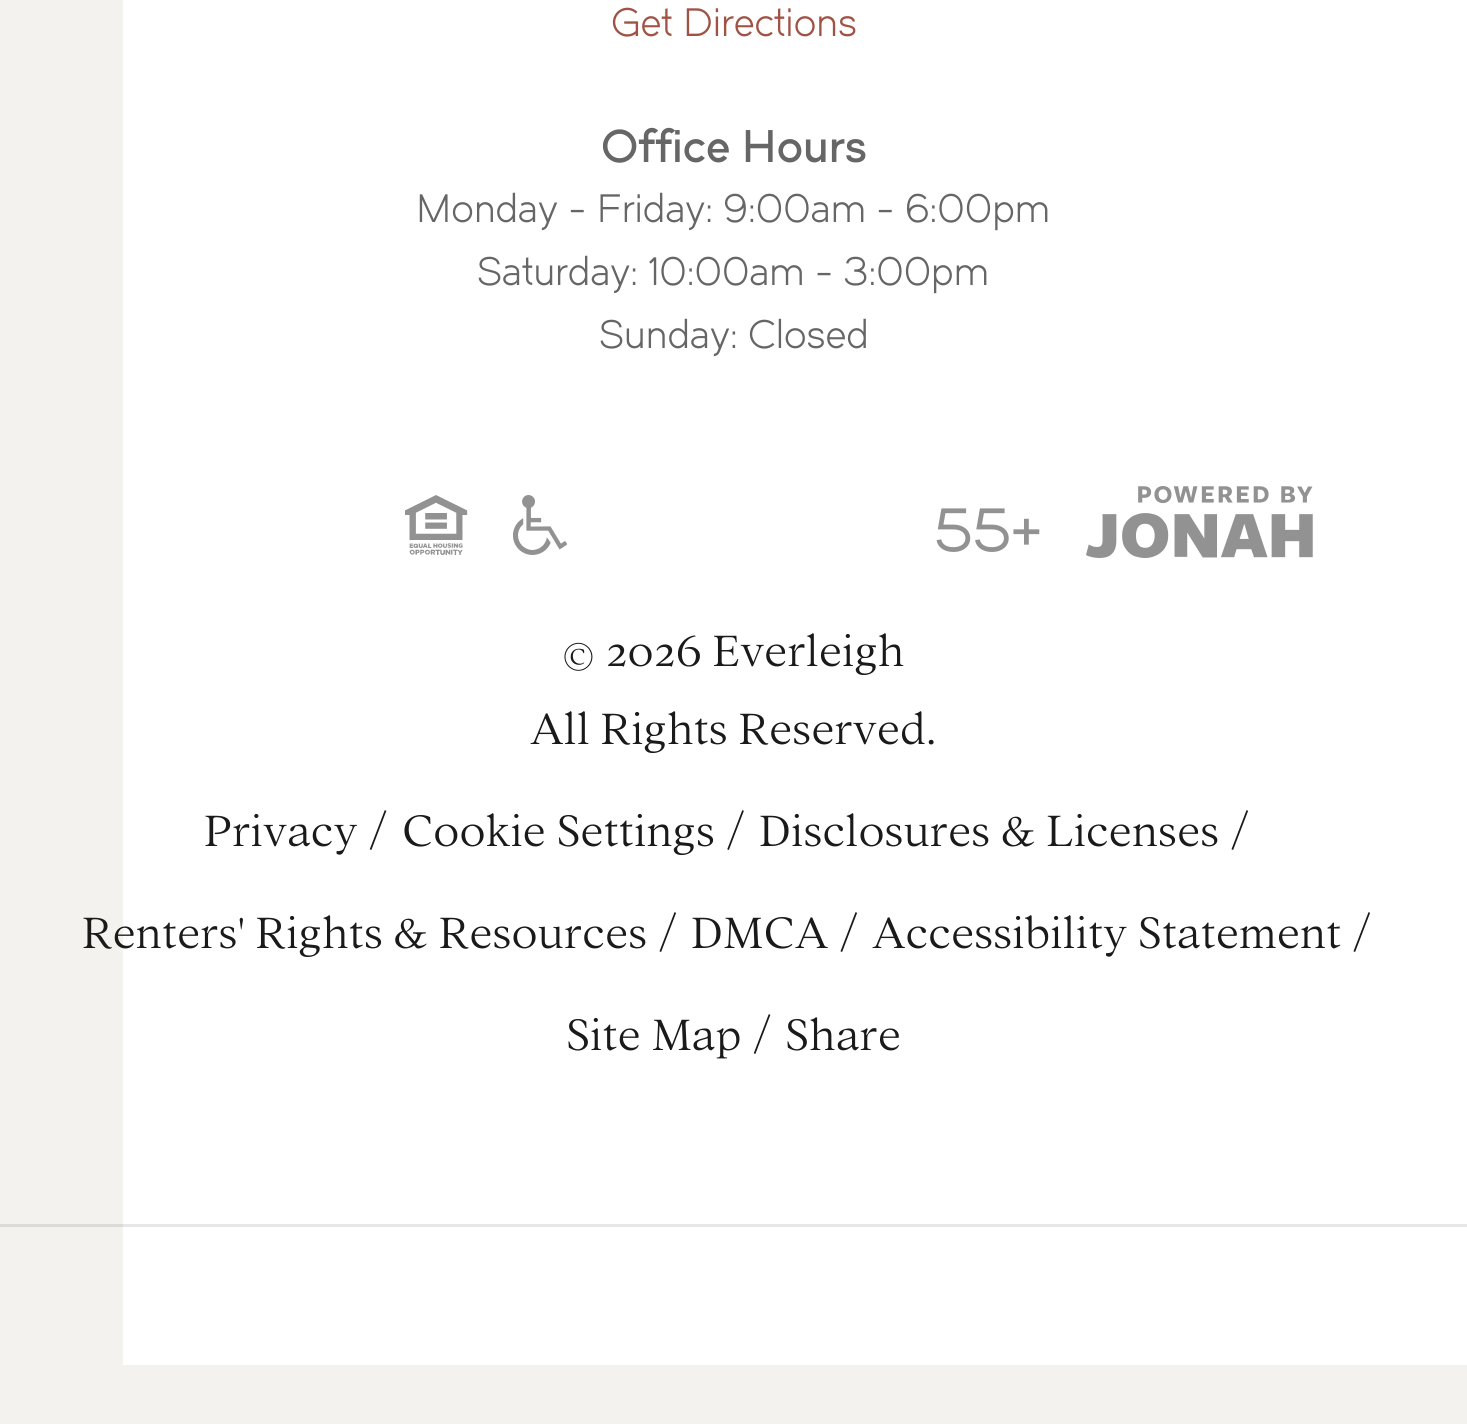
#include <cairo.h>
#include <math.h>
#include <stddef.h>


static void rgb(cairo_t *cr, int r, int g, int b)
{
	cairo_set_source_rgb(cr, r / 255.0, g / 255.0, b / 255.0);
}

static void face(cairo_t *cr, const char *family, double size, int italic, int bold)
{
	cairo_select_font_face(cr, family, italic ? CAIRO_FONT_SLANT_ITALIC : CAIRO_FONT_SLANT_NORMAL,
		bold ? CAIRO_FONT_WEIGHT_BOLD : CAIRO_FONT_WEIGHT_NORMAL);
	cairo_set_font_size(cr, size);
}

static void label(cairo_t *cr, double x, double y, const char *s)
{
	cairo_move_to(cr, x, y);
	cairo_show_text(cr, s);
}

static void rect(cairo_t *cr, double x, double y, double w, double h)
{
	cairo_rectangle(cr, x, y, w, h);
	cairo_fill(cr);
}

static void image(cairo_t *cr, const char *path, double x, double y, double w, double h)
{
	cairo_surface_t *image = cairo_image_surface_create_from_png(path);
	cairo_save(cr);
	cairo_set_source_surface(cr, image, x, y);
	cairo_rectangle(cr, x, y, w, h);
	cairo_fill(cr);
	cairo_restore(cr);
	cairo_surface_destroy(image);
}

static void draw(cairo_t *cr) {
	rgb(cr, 243, 242, 239);
	cairo_paint(cr);
	rgb(cr, 255, 255, 255);
	rect(cr, 123, 0, 1344, 1365);
	rgb(cr, 230, 230, 230);
	rect(cr, 123, 1224, 1344, 3);
	rgb(cr, 219, 218, 214);
	rect(cr, 0, 1224, 123, 3);
	face(cr, "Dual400", 39, 0, 0);
	rgb(cr, 160, 83, 69);
	label(cr, 611, 36, "Get Directions");
	face(cr, "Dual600", 45, 0, 0);
	rgb(cr, 102, 102, 102);
	label(cr, 601, 162, "Office Hours");
	face(cr, "Dual400", 39, 0, 0);
	label(cr, 416, 222, "Monday - Friday: 9:00am - 6:00pm");
	label(cr, 477, 285, "Saturday: 10:00am - 3:00pm");
	label(cr, 599, 348, "Sunday: Closed");
	image(cr, "image0.png", 405, 495, 63, 60);
	image(cr, "image1.png", 513, 495, 54, 60);
	face(cr, "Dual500", 60, 0, 0);
	rgb(cr, 146, 146, 147);
	label(cr, 934, 551, "55+");
	image(cr, "image2.png", 1086, 486, 227, 72);
	face(cr, "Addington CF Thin", 48, 0, 0);
	rgb(cr, 26, 26, 26);
	label(cr, 562, 672, "©");
	label(cr, 606, 666, "2026 Everleigh");
	label(cr, 530, 744, "All Rights Reserved.");
	label(cr, 204, 846, "Privacy /");
	label(cr, 402, 846, "Cookie Settings /");
	label(cr, 759, 846, "Disclosures & Licenses /");
	label(cr, 82, 948, "Renters' Rights & Resources");
	label(cr, 658, 948, "/");
	label(cr, 691, 948, "DMCA /");
	label(cr, 872, 948, "Accessibility Statement /");
	label(cr, 566, 1050, "Site Map /");
	label(cr, 785, 1050, "Share");
}

int main(void) {
	cairo_surface_t *surface = cairo_image_surface_create(CAIRO_FORMAT_RGB24, 1467, 1424);
	cairo_t *cr = cairo_create(surface);
	cairo_font_options_t *options = cairo_font_options_create();
	cairo_font_options_set_hint_metrics(options, CAIRO_HINT_METRICS_OFF);
	cairo_font_options_set_hint_style(options, CAIRO_HINT_STYLE_NONE);
	cairo_set_font_options(cr, options);
	cairo_set_miter_limit(cr, 4);
	draw(cr);
	cairo_surface_write_to_png(surface, "render.png");
	cairo_font_options_destroy(options);
	cairo_destroy(cr);
	cairo_surface_destroy(surface);
	return 0;
}
